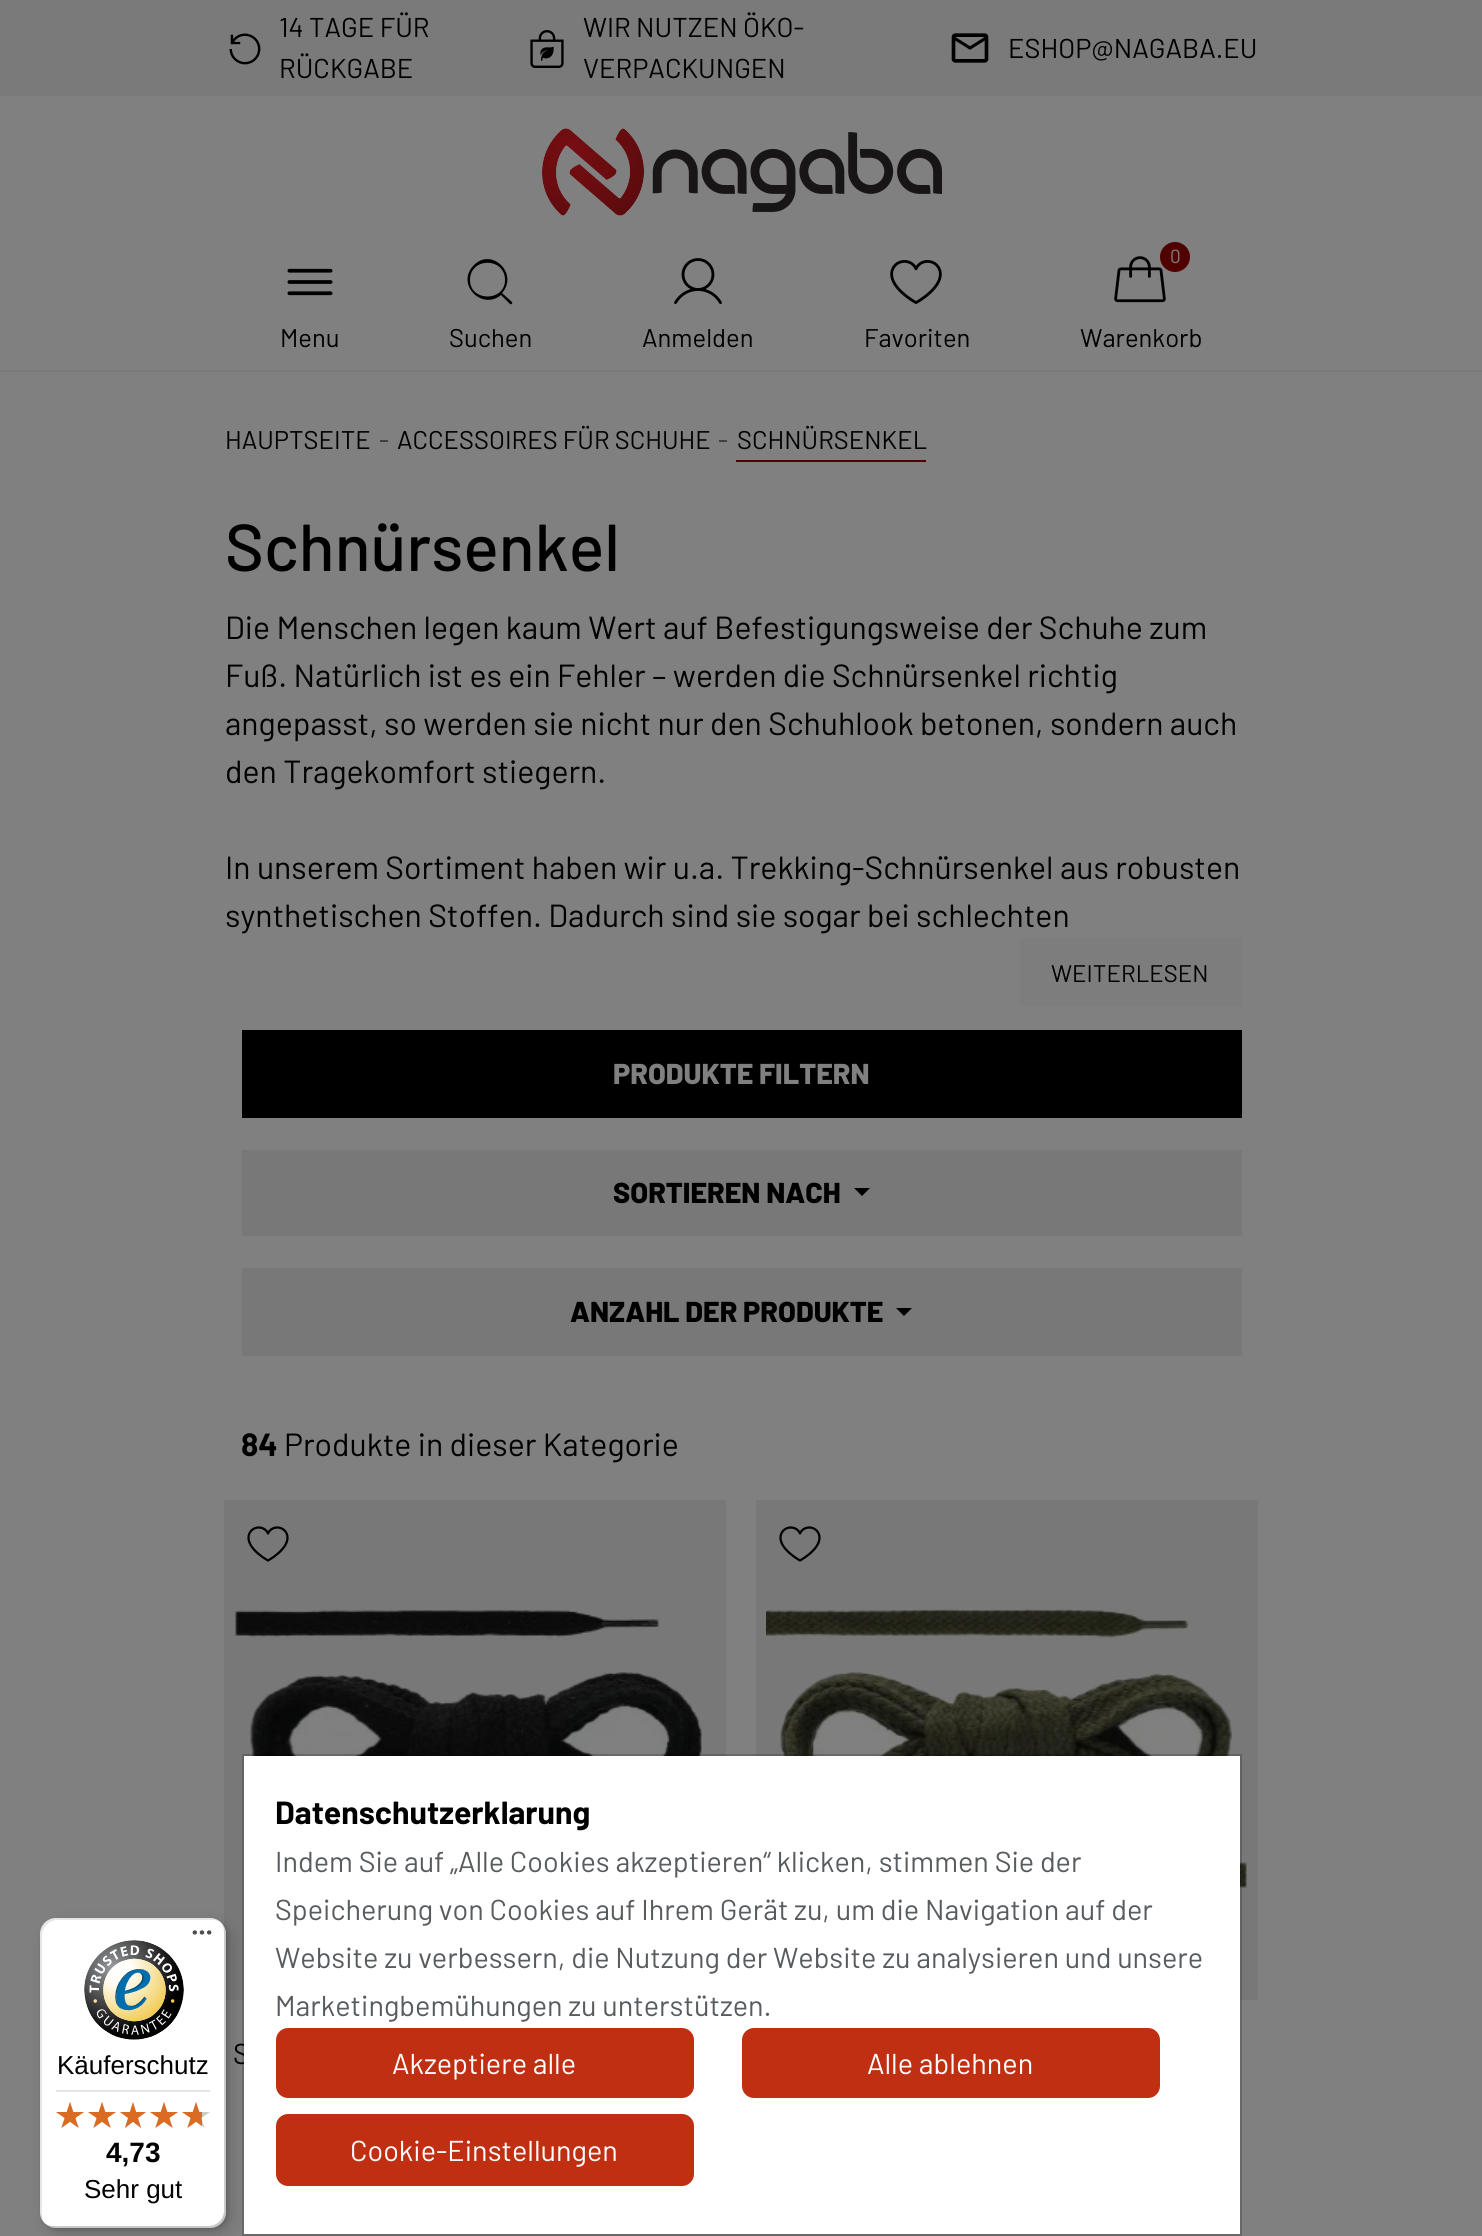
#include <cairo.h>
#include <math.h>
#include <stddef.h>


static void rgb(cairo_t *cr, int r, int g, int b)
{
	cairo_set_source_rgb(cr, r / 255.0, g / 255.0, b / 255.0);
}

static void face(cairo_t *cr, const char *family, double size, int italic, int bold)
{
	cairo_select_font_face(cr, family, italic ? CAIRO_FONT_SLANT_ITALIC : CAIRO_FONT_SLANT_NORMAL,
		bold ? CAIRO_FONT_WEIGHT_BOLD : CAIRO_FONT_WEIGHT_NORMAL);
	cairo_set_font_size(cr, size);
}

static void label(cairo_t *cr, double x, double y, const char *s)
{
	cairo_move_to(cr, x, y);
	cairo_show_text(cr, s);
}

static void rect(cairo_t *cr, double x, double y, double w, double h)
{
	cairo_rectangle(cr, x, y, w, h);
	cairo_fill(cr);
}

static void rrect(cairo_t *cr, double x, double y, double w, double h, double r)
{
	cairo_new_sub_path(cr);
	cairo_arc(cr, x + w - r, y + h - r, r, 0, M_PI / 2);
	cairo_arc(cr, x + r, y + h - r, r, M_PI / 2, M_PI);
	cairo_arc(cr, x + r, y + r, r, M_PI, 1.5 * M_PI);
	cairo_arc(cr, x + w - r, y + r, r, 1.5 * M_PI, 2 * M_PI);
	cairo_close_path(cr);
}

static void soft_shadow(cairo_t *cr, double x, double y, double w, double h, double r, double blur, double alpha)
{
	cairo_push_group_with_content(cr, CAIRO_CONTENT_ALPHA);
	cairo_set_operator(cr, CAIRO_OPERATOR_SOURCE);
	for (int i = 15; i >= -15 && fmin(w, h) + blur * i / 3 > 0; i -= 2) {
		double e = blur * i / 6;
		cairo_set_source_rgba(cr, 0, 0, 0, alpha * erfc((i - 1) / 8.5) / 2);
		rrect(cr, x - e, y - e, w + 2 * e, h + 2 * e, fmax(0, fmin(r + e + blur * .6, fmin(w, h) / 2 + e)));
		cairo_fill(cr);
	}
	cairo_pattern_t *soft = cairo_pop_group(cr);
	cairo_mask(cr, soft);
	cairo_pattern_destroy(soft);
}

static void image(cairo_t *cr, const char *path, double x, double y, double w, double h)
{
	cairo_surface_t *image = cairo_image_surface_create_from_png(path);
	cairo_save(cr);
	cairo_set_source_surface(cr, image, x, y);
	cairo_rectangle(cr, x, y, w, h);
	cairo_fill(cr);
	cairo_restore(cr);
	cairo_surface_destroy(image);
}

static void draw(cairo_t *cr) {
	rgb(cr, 122, 122, 122);
	cairo_paint(cr);
	image(cr, "image0.png", 229, 33, 32, 32);
	face(cr, "Barlow", 27.25, 0, 0);
	rgb(cr, 0, 0, 0);
	label(cr, 279, 37, "14 TAGE FÜR");
	label(cr, 279, 78, "RÜCKGABE");
	image(cr, "image1.png", 530, 30, 34, 38);
	label(cr, 583, 37, "WIR NUTZEN ÖKO-");
	label(cr, 583, 78, "VERPACKUNGEN");
	image(cr, "image2.png", 951, 33, 38, 30);
	label(cr, 1008, 58, "ESHOP@NAGABA.EU");
	rgb(cr, 128, 128, 128);
	rect(cr, 0, 96, 1482, 274);
	image(cr, "image3.png", 542, 128, 400, 88);
	image(cr, "image4.png", 287, 268, 46, 28);
	face(cr, "Barlow", 25.6, 0, 0);
	rgb(cr, 0, 0, 0);
	label(cr, 280, 347, "Menu");
	cairo_new_path(cr);
	cairo_move_to(cr, 510, 304);
	cairo_curve_to(cr, 511, 305, 513, 303, 512, 302);
	cairo_line_to(cr, 502, 293);
	cairo_curve_to(cr, 519, 274, 492, 247, 474, 265);
	cairo_curve_to(cr, 455, 284, 482, 311, 501, 295);
	cairo_close_path(cr);
	cairo_move_to(cr, 470, 280);
	cairo_curve_to(cr, 470, 257, 505, 257, 505, 280);
	cairo_curve_to(cr, 505, 302, 470, 302, 470, 280);
	cairo_close_path(cr);
	cairo_fill(cr);
	label(cr, 449, 347, "Suchen");
	image(cr, "image5.png", 674, 258, 48, 47);
	label(cr, 642, 347, "Anmelden");
	image(cr, "image6.png", 890, 260, 52, 44);
	label(cr, 864, 347, "Favoriten");
	image(cr, "image7.png", 1114, 256, 52, 47);
	rgb(cr, 81, 0, 0);
	cairo_arc(cr, 1175, 257, 15, 0, 2 * M_PI);
	cairo_fill(cr);
	face(cr, "Barlow", 19, 0, 0);
	rgb(cr, 128, 128, 128);
	label(cr, 1170, 263, "0");
	face(cr, "Barlow", 25.6, 0, 0);
	rgb(cr, 0, 0, 0);
	label(cr, 1080, 347, "Warenkorb");
	rgb(cr, 128, 128, 128);
	rect(cr, 0, 372, 1482, 1864);
	rgb(cr, 0, 0, 0);
	label(cr, 225, 449, "HAUPTSEITE");
	rgb(cr, 45, 46, 48);
	label(cr, 379, 449, "-");
	rgb(cr, 0, 0, 0);
	label(cr, 397, 449, "ACCESSOIRES FÜR SCHUHE");
	rgb(cr, 45, 46, 48);
	label(cr, 718, 449, "-");
	rgb(cr, 0, 0, 0);
	label(cr, 737, 449, "SCHNÜRSENKEL");
	rgb(cr, 81, 0, 0);
	rect(cr, 736, 460, 190, 2);
	face(cr, "Barlow Medium", 66.25, 0, 0);
	rgb(cr, 0, 0, 0);
	label(cr, 225, 571, "Schnürsenkel");
	face(cr, "Barlow", 32, 0, 0);
	label(cr, 225, 639, "Die Menschen legen kaum Wert auf Befestigungsweise der Schuhe zum");
	label(cr, 225, 687, "Fuß. Natürlich ist es ein Fehler – werden die Schnürsenkel richtig");
	label(cr, 225, 735, "angepasst, so werden sie nicht nur den Schuhlook betonen, sondern auch");
	label(cr, 225, 783, "den Tragekomfort stiegern.");
	label(cr, 225, 879, "In unserem Sortiment haben wir u.a. Trekking-Schnürsenkel aus robusten");
	label(cr, 225, 927, "synthetischen Stoffen. Dadurch sind sie sogar bei schlechten");
	rgb(cr, 125, 125, 125);
	rect(cr, 1020, 938, 222, 68);
	face(cr, "Barlow", 24, 0, 0);
	rgb(cr, 0, 0, 0);
	label(cr, 1051, 982, "WEITERLESEN");
	rect(cr, 242, 1030, 1000, 88);
	face(cr, "Barlow ExtraBold", 28.8, 0, 0);
	rgb(cr, 128, 128, 128);
	label(cr, 613, 1084, "PRODUKTE FILTERN");
	rgb(cr, 120, 120, 120);
	rect(cr, 242, 1150, 1000, 86);
	rgb(cr, 0, 0, 0);
	label(cr, 613, 1203, "SORTIEREN NACH");
	cairo_new_path(cr);
	cairo_move_to(cr, 854, 1188);
	cairo_line_to(cr, 870, 1188);
	cairo_line_to(cr, 862, 1196);
	cairo_close_path(cr);
	cairo_fill(cr);
	rgb(cr, 120, 120, 120);
	rect(cr, 242, 1268, 1000, 88);
	rgb(cr, 0, 0, 0);
	label(cr, 570, 1322, "ANZAHL DER PRODUKTE");
	cairo_new_path(cr);
	cairo_move_to(cr, 896, 1308);
	cairo_line_to(cr, 912, 1308);
	cairo_line_to(cr, 904, 1316);
	cairo_close_path(cr);
	cairo_fill(cr);
	face(cr, "Barlow", 32, 0, 1);
	label(cr, 241, 1456, "84");
	face(cr, "Barlow", 32, 0, 0);
	label(cr, 284, 1456, "Produkte in dieser Kategorie");
	rgb(cr, 120, 120, 120);
	rect(cr, 756, 1500, 502, 500);
	image(cr, "image8.png", 779, 1526, 42, 36);
	image(cr, "image9.png", 766, 1608, 481, 280);
	rect(cr, 224, 1500, 502, 500);
	image(cr, "image8.png", 247, 1526, 42, 36);
	image(cr, "image10.png", 235, 1610, 469, 146);
	face(cr, "Barlow", 28.8, 0, 0);
	rgb(cr, 0, 0, 0);
	label(cr, 233, 2064, "S");
	rgb(cr, 255, 255, 255);
	rect(cr, 244, 1756, 996, 478);
	cairo_rectangle(cr, 243, 1755, 998, 480);
	cairo_set_source_rgba(cr, 0, 0, 0, 0.18);
	cairo_stroke(cr);
	rgb(cr, 0, 0, 0);
	soft_shadow(cr, 46, 1924, 186, 310, 16, 8, 0.15);
	soft_shadow(cr, 42, 1920, 186, 310, 16, 2, 0.15);
	rgb(cr, 255, 255, 255);
	rrect(cr, 40, 1918, 186, 310, 16);
	cairo_fill(cr);
	cairo_set_source_rgba(cr, 0, 0, 0, 0.1);
	cairo_new_path(cr);
	cairo_move_to(cr, 58, 1920);
	cairo_line_to(cr, 212, 1920);
	cairo_curve_to(cr, 216, 1920, 219, 1921, 222, 1923);
	cairo_curve_to(cr, 219, 1920, 215, 1918, 210, 1918);
	cairo_line_to(cr, 56, 1918);
	cairo_curve_to(cr, 47, 1918, 40, 1925, 40, 1934);
	cairo_line_to(cr, 40, 2212);
	cairo_curve_to(cr, 40, 2217, 42, 2221, 45, 2224);
	cairo_curve_to(cr, 43, 2221, 42, 2218, 42, 2214);
	cairo_line_to(cr, 42, 1936);
	cairo_curve_to(cr, 42, 1927, 49, 1920, 58, 1920);
	cairo_close_path(cr);
	cairo_fill(cr);
	cairo_set_source_rgba(cr, 0, 0, 0, 0.2);
	cairo_new_path(cr);
	cairo_move_to(cr, 44, 2223);
	cairo_curve_to(cr, 47, 2226, 51, 2228, 56, 2228);
	cairo_line_to(cr, 210, 2228);
	cairo_curve_to(cr, 219, 2228, 226, 2221, 226, 2212);
	cairo_line_to(cr, 226, 1934);
	cairo_curve_to(cr, 226, 1929, 224, 1925, 221, 1922);
	cairo_curve_to(cr, 223, 1925, 224, 1928, 224, 1932);
	cairo_line_to(cr, 224, 2210);
	cairo_curve_to(cr, 224, 2219, 217, 2226, 208, 2226);
	cairo_line_to(cr, 54, 2226);
	cairo_curve_to(cr, 50, 2226, 47, 2225, 44, 2223);
	cairo_close_path(cr);
	cairo_fill(cr);
	cairo_set_source_rgba(cr, 0.196, 0.196, 0.196, 0.2);
	cairo_new_path(cr);
	cairo_move_to(cr, 45, 2223);
	cairo_curve_to(cr, 48, 2226, 52, 2228, 56, 2228);
	cairo_line_to(cr, 210, 2228);
	cairo_curve_to(cr, 219, 2228, 226, 2221, 226, 2212);
	cairo_line_to(cr, 226, 1934);
	cairo_curve_to(cr, 226, 1930, 224, 1926, 221, 1923);
	cairo_curve_to(cr, 224, 1926, 225, 1929, 225, 1933);
	cairo_line_to(cr, 225, 2211);
	cairo_curve_to(cr, 225, 2220, 218, 2227, 209, 2227);
	cairo_line_to(cr, 55, 2227);
	cairo_curve_to(cr, 51, 2227, 48, 2226, 45, 2223);
	cairo_close_path(cr);
	cairo_fill(cr);
	cairo_set_source_rgba(cr, 1, 1, 1, 0.3);
	cairo_new_path(cr);
	cairo_move_to(cr, 45, 2223);
	cairo_curve_to(cr, 48, 2226, 52, 2228, 56, 2228);
	cairo_line_to(cr, 210, 2228);
	cairo_curve_to(cr, 219, 2228, 226, 2221, 226, 2212);
	cairo_line_to(cr, 226, 1934);
	cairo_curve_to(cr, 226, 1930, 224, 1926, 221, 1923);
	cairo_curve_to(cr, 224, 1926, 225, 1929, 225, 1933);
	cairo_line_to(cr, 225, 2211);
	cairo_curve_to(cr, 225, 2220, 218, 2227, 209, 2227);
	cairo_line_to(cr, 55, 2227);
	cairo_curve_to(cr, 51, 2227, 48, 2226, 45, 2223);
	cairo_close_path(cr);
	cairo_fill(cr);
	image(cr, "image11.png", 192, 1930, 20, 5);
	image(cr, "image12.png", 84, 1940, 100, 100);
	face(cr, "Liberation Sans", 26, 0, 0);
	rgb(cr, 0, 0, 0);
	label(cr, 57, 2074, "Käuferschutz");
	rgb(cr, 229, 229, 229);
	rect(cr, 56, 2090, 154, 2);
	image(cr, "image13.png", 56, 2102, 28, 26);
	image(cr, "image13.png", 88, 2102, 28, 26);
	image(cr, "image14.png", 120, 2102, 26, 26);
	image(cr, "image13.png", 150, 2102, 28, 26);
	image(cr, "image13.png", 182, 2102, 28, 26);
	image(cr, "image15.png", 56, 2102, 28, 26);
	image(cr, "image15.png", 88, 2102, 28, 26);
	image(cr, "image16.png", 120, 2102, 26, 26);
	image(cr, "image15.png", 150, 2102, 28, 26);
	image(cr, "image17.png", 182, 2102, 20, 26);
	face(cr, "Liberation Sans", 28, 0, 1);
	rgb(cr, 0, 0, 0);
	label(cr, 106, 2162, "4,73");
	face(cr, "Liberation Sans", 26, 0, 0);
	label(cr, 84, 2198, "Sehr gut");
	face(cr, "Barlow", 32, 0, 1);
	label(cr, 275, 1824, "Datenschutzerklarung");
	face(cr, "Barlow", 28.8, 0, 0);
	rgb(cr, 89, 92, 95);
	label(cr, 275, 1872, "Indem Sie auf „Alle Cookies akzeptieren“ klicken, stimmen Sie der");
	label(cr, 275, 1920, "Speicherung von Cookies auf Ihrem Gerät zu, um die Navigation auf der");
	label(cr, 275, 1968, "Website zu verbessern, die Nutzung der Website zu analysieren und unsere");
	label(cr, 275, 2016, "Marketingbemühungen zu unterstützen.");
	rgb(cr, 192, 47, 18);
	rrect(cr, 277, 2029, 416, 68, 11);
	cairo_fill_preserve(cr);
	cairo_stroke(cr);
	rgb(cr, 255, 255, 255);
	label(cr, 392, 2074, "Akzeptiere alle");
	rgb(cr, 192, 47, 18);
	rrect(cr, 743, 2029, 416, 68, 11);
	cairo_fill_preserve(cr);
	cairo_stroke(cr);
	rgb(cr, 255, 255, 255);
	label(cr, 867, 2074, "Alle ablehnen");
	rgb(cr, 192, 47, 18);
	rrect(cr, 277, 2115, 416, 70, 11);
	cairo_fill_preserve(cr);
	cairo_stroke(cr);
	rgb(cr, 255, 255, 255);
	label(cr, 350, 2161, "Cookie-Einstellungen");
}

int main(void) {
	cairo_surface_t *surface = cairo_image_surface_create(CAIRO_FORMAT_RGB24, 1482, 2236);
	cairo_t *cr = cairo_create(surface);
	cairo_font_options_t *options = cairo_font_options_create();
	cairo_font_options_set_hint_metrics(options, CAIRO_HINT_METRICS_OFF);
	cairo_font_options_set_hint_style(options, CAIRO_HINT_STYLE_NONE);
	cairo_set_font_options(cr, options);
	cairo_set_miter_limit(cr, 4);
	draw(cr);
	cairo_surface_write_to_png(surface, "render.png");
	cairo_font_options_destroy(options);
	cairo_destroy(cr);
	cairo_surface_destroy(surface);
	return 0;
}
